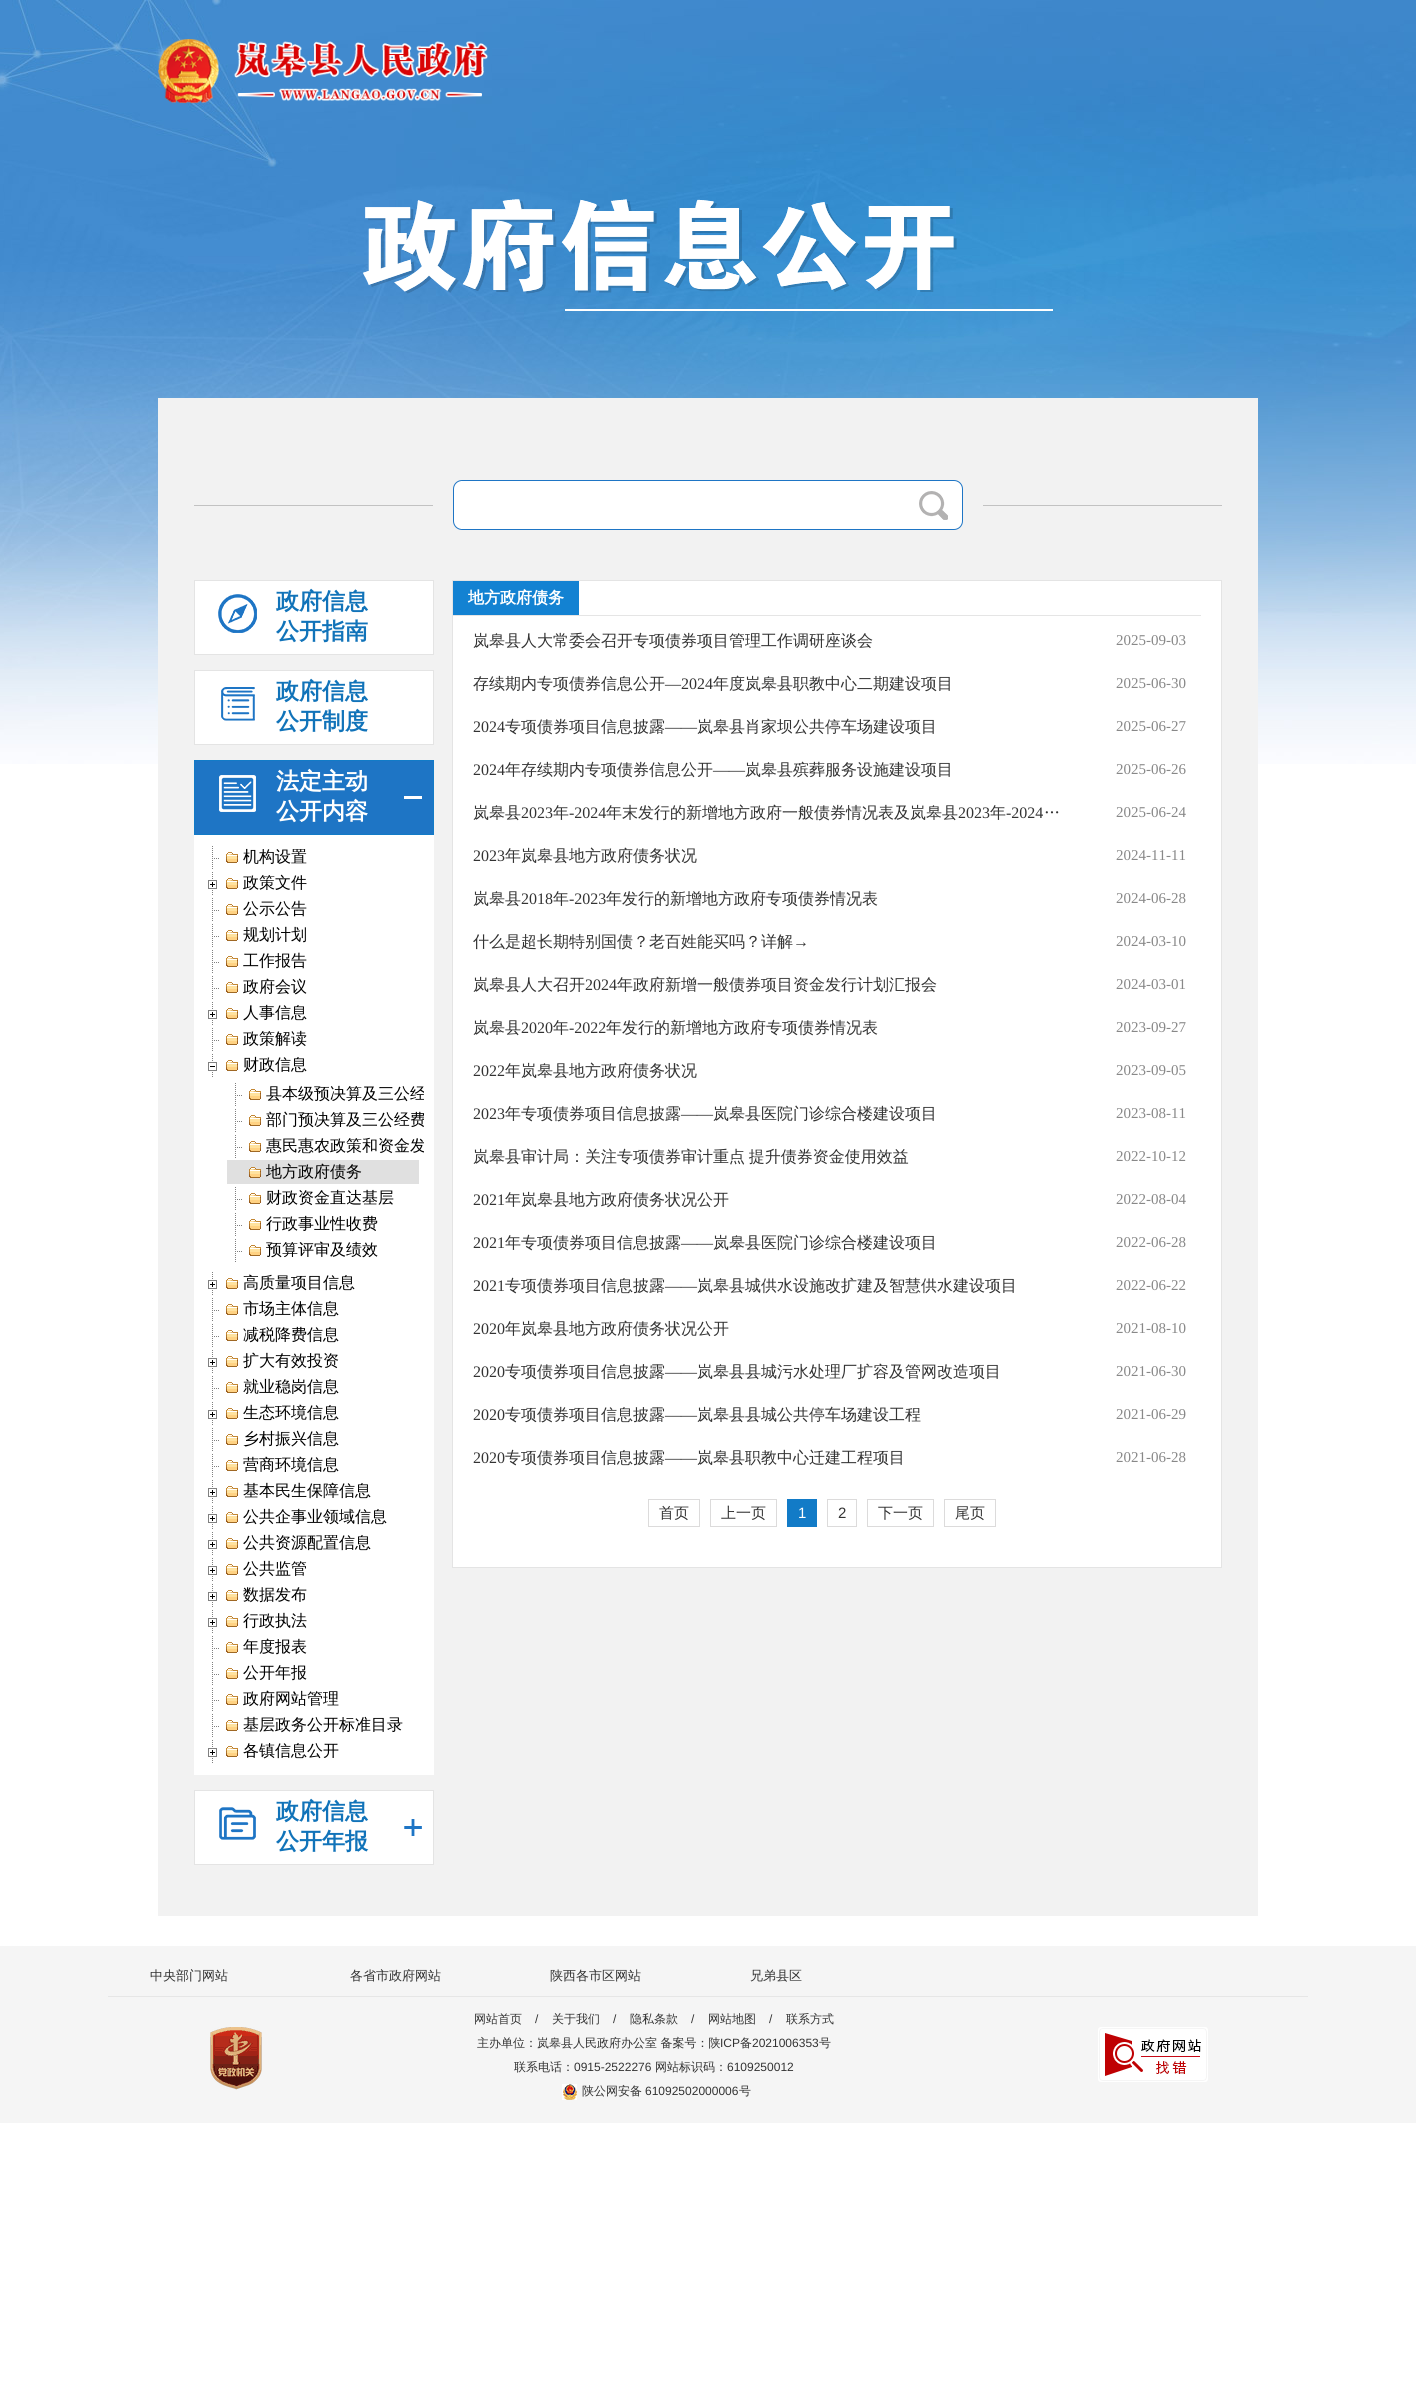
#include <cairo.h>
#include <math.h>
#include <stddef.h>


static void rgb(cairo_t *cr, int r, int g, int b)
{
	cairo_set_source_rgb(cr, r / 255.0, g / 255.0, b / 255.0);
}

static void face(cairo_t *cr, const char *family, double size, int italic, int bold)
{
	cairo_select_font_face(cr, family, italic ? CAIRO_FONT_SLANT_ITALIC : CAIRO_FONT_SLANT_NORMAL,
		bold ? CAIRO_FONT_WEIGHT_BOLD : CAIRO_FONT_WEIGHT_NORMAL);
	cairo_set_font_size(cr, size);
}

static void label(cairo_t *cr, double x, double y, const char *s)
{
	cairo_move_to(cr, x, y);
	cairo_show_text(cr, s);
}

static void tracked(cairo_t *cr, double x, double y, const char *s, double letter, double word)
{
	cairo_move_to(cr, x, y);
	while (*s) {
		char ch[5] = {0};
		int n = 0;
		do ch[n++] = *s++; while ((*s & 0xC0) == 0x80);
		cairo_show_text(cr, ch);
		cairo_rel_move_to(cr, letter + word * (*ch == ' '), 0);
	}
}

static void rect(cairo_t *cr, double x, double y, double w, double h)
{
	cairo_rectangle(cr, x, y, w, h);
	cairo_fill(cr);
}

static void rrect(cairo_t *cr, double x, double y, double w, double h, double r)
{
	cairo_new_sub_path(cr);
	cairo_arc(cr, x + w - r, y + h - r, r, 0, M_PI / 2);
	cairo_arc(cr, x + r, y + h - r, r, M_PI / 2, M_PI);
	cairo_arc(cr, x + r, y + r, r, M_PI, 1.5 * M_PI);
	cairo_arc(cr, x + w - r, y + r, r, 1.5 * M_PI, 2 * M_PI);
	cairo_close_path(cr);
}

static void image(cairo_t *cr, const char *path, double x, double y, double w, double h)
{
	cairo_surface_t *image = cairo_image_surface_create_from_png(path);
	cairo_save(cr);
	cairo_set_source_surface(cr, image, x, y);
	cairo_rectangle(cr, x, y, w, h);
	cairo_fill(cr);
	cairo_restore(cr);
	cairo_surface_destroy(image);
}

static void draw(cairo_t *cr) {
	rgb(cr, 255, 255, 255);
	cairo_paint(cr);
	image(cr, "image0.png", 0, 0, 1416, 764);
	image(cr, "image1.png", 158, 39, 330, 65);
	image(cr, "image2.png", 363, 199, 690, 112);
	rgb(cr, 242, 242, 242);
	rect(cr, 158, 398, 1100, 1518);
	image(cr, "image3.png", 194, 505, 1028, 1);
	rgb(cr, 255, 255, 255);
	rrect(cr, 453.5, 480.5, 509, 49, 8.5);
	cairo_fill_preserve(cr);
	rgb(cr, 30, 117, 197);
	cairo_set_line_width(cr, 1);
	cairo_stroke(cr);
	rgb(cr, 255, 255, 255);
	rect(cr, 461, 481, 1, 48);
	image(cr, "image4.png", 919, 491, 29, 29);
	cairo_rectangle(cr, 194.5, 580.5, 239, 74);
	cairo_fill_preserve(cr);
	rgb(cr, 228, 228, 228);
	cairo_stroke(cr);
	image(cr, "image5.png", 218, 594, 39, 39);
	face(cr, "WenQuanYi Zen Hei", 23, 0, 1);
	rgb(cr, 17, 115, 185);
	label(cr, 276, 609, "政府信息");
	label(cr, 276, 639, "公开指南");
	rgb(cr, 255, 255, 255);
	cairo_rectangle(cr, 194.5, 670.5, 239, 74);
	cairo_fill_preserve(cr);
	rgb(cr, 228, 228, 228);
	cairo_stroke(cr);
	image(cr, "image6.png", 221, 687, 34, 34);
	rgb(cr, 17, 115, 185);
	label(cr, 276, 699, "政府信息");
	label(cr, 276, 729, "公开制度");
	rgb(cr, 30, 117, 197);
	rect(cr, 195, 761, 238, 73);
	rgb(cr, 255, 255, 255);
	rect(cr, 404, 796, 18, 3);
	cairo_rectangle(cr, 194.5, 760.5, 239, 74);
	rgb(cr, 18, 123, 199);
	cairo_stroke(cr);
	image(cr, "image7.png", 219, 775, 37, 37);
	rgb(cr, 255, 255, 255);
	label(cr, 276, 789, "法定主动");
	label(cr, 276, 819, "公开内容");
	rect(cr, 194, 835, 240, 940);
	image(cr, "image8.png", 212, 846, 1, 23);
	image(cr, "image9.png", 214, 858, 5, 1);
	image(cr, "image10.png", 226, 852, 12, 11);
	face(cr, "WenQuanYi Zen Hei Medium", 16, 0, 0);
	rgb(cr, 0, 0, 0);
	label(cr, 243, 862, "机构设置");
	image(cr, "image8.png", 212, 872, 1, 23);
	image(cr, "image11.png", 208, 880, 9, 9);
	image(cr, "image10.png", 226, 878, 12, 11);
	label(cr, 243, 888, "政策文件");
	image(cr, "image8.png", 212, 898, 1, 23);
	image(cr, "image9.png", 214, 910, 5, 1);
	image(cr, "image10.png", 226, 904, 12, 11);
	label(cr, 243, 914, "公示公告");
	image(cr, "image8.png", 212, 924, 1, 23);
	image(cr, "image9.png", 214, 936, 5, 1);
	image(cr, "image10.png", 226, 930, 12, 11);
	label(cr, 243, 940, "规划计划");
	image(cr, "image8.png", 212, 950, 1, 23);
	image(cr, "image9.png", 214, 962, 5, 1);
	image(cr, "image10.png", 226, 956, 12, 11);
	label(cr, 243, 966, "工作报告");
	image(cr, "image8.png", 212, 976, 1, 23);
	image(cr, "image9.png", 214, 988, 5, 1);
	image(cr, "image10.png", 226, 982, 12, 11);
	label(cr, 243, 992, "政府会议");
	image(cr, "image8.png", 212, 1002, 1, 23);
	image(cr, "image11.png", 208, 1010, 9, 9);
	image(cr, "image10.png", 226, 1008, 12, 11);
	label(cr, 243, 1018, "人事信息");
	image(cr, "image8.png", 212, 1028, 1, 23);
	image(cr, "image9.png", 214, 1040, 5, 1);
	image(cr, "image10.png", 226, 1034, 12, 11);
	label(cr, 243, 1044, "政策解读");
	image(cr, "image8.png", 212, 1054, 1, 23);
	image(cr, "image12.png", 208, 1062, 9, 9);
	image(cr, "image10.png", 226, 1060, 12, 11);
	label(cr, 243, 1070, "财政信息");
	image(cr, "image8.png", 235, 1083, 1, 23);
	image(cr, "image9.png", 237, 1095, 5, 1);
	image(cr, "image10.png", 249, 1089, 12, 11);
	cairo_save(cr);
	cairo_rectangle(cr, 204, 1077, 220, 192);
	cairo_clip(cr);
	label(cr, 266, 1099, "县本级预决算及三公经");
	cairo_restore(cr);
	image(cr, "image8.png", 235, 1109, 1, 23);
	image(cr, "image9.png", 237, 1121, 5, 1);
	image(cr, "image10.png", 249, 1115, 12, 11);
	cairo_save(cr);
	cairo_rectangle(cr, 204, 1077, 220, 192);
	cairo_clip(cr);
	label(cr, 266, 1125, "部门预决算及三公经费");
	cairo_restore(cr);
	image(cr, "image8.png", 235, 1135, 1, 23);
	image(cr, "image9.png", 237, 1147, 5, 1);
	image(cr, "image10.png", 249, 1141, 12, 11);
	cairo_save(cr);
	cairo_rectangle(cr, 204, 1077, 220, 192);
	cairo_clip(cr);
	label(cr, 266, 1151, "惠民惠农政策和资金发");
	cairo_restore(cr);
	rgb(cr, 224, 224, 224);
	rect(cr, 227, 1160, 192, 24);
	image(cr, "image13.png", 249, 1167, 12, 11);
	rgb(cr, 0, 0, 0);
	label(cr, 266, 1177, "地方政府债务");
	image(cr, "image8.png", 235, 1187, 1, 23);
	image(cr, "image9.png", 237, 1199, 5, 1);
	image(cr, "image10.png", 249, 1193, 12, 11);
	label(cr, 266, 1203, "财政资金直达基层");
	image(cr, "image8.png", 235, 1213, 1, 23);
	image(cr, "image9.png", 237, 1225, 5, 1);
	image(cr, "image10.png", 249, 1219, 12, 11);
	label(cr, 266, 1229, "行政事业性收费");
	image(cr, "image8.png", 235, 1239, 1, 23);
	image(cr, "image9.png", 237, 1251, 5, 1);
	image(cr, "image10.png", 249, 1245, 12, 11);
	label(cr, 266, 1255, "预算评审及绩效");
	image(cr, "image8.png", 212, 1272, 1, 23);
	image(cr, "image11.png", 208, 1280, 9, 9);
	image(cr, "image10.png", 226, 1278, 12, 11);
	label(cr, 243, 1288, "高质量项目信息");
	image(cr, "image8.png", 212, 1298, 1, 23);
	image(cr, "image9.png", 214, 1310, 5, 1);
	image(cr, "image10.png", 226, 1304, 12, 11);
	label(cr, 243, 1314, "市场主体信息");
	image(cr, "image8.png", 212, 1324, 1, 23);
	image(cr, "image9.png", 214, 1336, 5, 1);
	image(cr, "image10.png", 226, 1330, 12, 11);
	label(cr, 243, 1340, "减税降费信息");
	image(cr, "image8.png", 212, 1350, 1, 23);
	image(cr, "image11.png", 208, 1358, 9, 9);
	image(cr, "image10.png", 226, 1356, 12, 11);
	label(cr, 243, 1366, "扩大有效投资");
	image(cr, "image8.png", 212, 1376, 1, 23);
	image(cr, "image9.png", 214, 1388, 5, 1);
	image(cr, "image10.png", 226, 1382, 12, 11);
	label(cr, 243, 1392, "就业稳岗信息");
	image(cr, "image8.png", 212, 1402, 1, 23);
	image(cr, "image11.png", 208, 1410, 9, 9);
	image(cr, "image10.png", 226, 1408, 12, 11);
	label(cr, 243, 1418, "生态环境信息");
	image(cr, "image8.png", 212, 1428, 1, 23);
	image(cr, "image9.png", 214, 1440, 5, 1);
	image(cr, "image10.png", 226, 1434, 12, 11);
	label(cr, 243, 1444, "乡村振兴信息");
	image(cr, "image8.png", 212, 1454, 1, 23);
	image(cr, "image9.png", 214, 1466, 5, 1);
	image(cr, "image10.png", 226, 1460, 12, 11);
	label(cr, 243, 1470, "营商环境信息");
	image(cr, "image8.png", 212, 1480, 1, 23);
	image(cr, "image11.png", 208, 1488, 9, 9);
	image(cr, "image10.png", 226, 1486, 12, 11);
	label(cr, 243, 1496, "基本民生保障信息");
	image(cr, "image8.png", 212, 1506, 1, 23);
	image(cr, "image11.png", 208, 1514, 9, 9);
	image(cr, "image10.png", 226, 1512, 12, 11);
	label(cr, 243, 1522, "公共企事业领域信息");
	image(cr, "image8.png", 212, 1532, 1, 23);
	image(cr, "image11.png", 208, 1540, 9, 9);
	image(cr, "image10.png", 226, 1538, 12, 11);
	label(cr, 243, 1548, "公共资源配置信息");
	image(cr, "image8.png", 212, 1558, 1, 23);
	image(cr, "image11.png", 208, 1566, 9, 9);
	image(cr, "image10.png", 226, 1564, 12, 11);
	label(cr, 243, 1574, "公共监管");
	image(cr, "image8.png", 212, 1584, 1, 23);
	image(cr, "image11.png", 208, 1592, 9, 9);
	image(cr, "image10.png", 226, 1590, 12, 11);
	label(cr, 243, 1600, "数据发布");
	image(cr, "image8.png", 212, 1610, 1, 23);
	image(cr, "image11.png", 208, 1618, 9, 9);
	image(cr, "image10.png", 226, 1616, 12, 11);
	label(cr, 243, 1626, "行政执法");
	image(cr, "image8.png", 212, 1636, 1, 23);
	image(cr, "image9.png", 214, 1648, 5, 1);
	image(cr, "image10.png", 226, 1642, 12, 11);
	label(cr, 243, 1652, "年度报表");
	image(cr, "image8.png", 212, 1662, 1, 23);
	image(cr, "image9.png", 214, 1674, 5, 1);
	image(cr, "image10.png", 226, 1668, 12, 11);
	label(cr, 243, 1678, "公开年报");
	image(cr, "image8.png", 212, 1688, 1, 23);
	image(cr, "image9.png", 214, 1700, 5, 1);
	image(cr, "image10.png", 226, 1694, 12, 11);
	label(cr, 243, 1704, "政府网站管理");
	image(cr, "image8.png", 212, 1714, 1, 23);
	image(cr, "image9.png", 214, 1726, 5, 1);
	image(cr, "image10.png", 226, 1720, 12, 11);
	label(cr, 243, 1730, "基层政务公开标准目录");
	image(cr, "image8.png", 212, 1740, 1, 23);
	image(cr, "image11.png", 208, 1748, 9, 9);
	image(cr, "image10.png", 226, 1746, 12, 11);
	label(cr, 243, 1756, "各镇信息公开");
	rgb(cr, 255, 255, 255);
	rect(cr, 195, 1791, 238, 73);
	image(cr, "image14.png", 404, 1819, 18, 17);
	cairo_rectangle(cr, 194.5, 1790.5, 239, 74);
	rgb(cr, 228, 228, 228);
	cairo_stroke(cr);
	image(cr, "image15.png", 219, 1807, 37, 33);
	face(cr, "WenQuanYi Zen Hei", 23, 0, 1);
	rgb(cr, 17, 115, 185);
	label(cr, 276, 1819, "政府信息");
	label(cr, 276, 1849, "公开年报");
	rgb(cr, 255, 255, 255);
	cairo_rectangle(cr, 452.5, 580.5, 769, 987);
	cairo_fill_preserve(cr);
	rgb(cr, 228, 228, 228);
	cairo_stroke(cr);
	rgb(cr, 229, 229, 229);
	rect(cr, 453, 615, 748, 1);
	rgb(cr, 19, 130, 210);
	rect(cr, 453, 581, 126, 34);
	face(cr, "WenQuanYi Zen Hei", 16, 0, 1);
	rgb(cr, 255, 255, 255);
	label(cr, 468, 603, "地方政府债务");
	face(cr, "WenQuanYi Zen Hei Medium", 16, 0, 0);
	rgb(cr, 51, 51, 51);
	label(cr, 473, 646, "岚皋县人大常委会召开专项债券项目管理工作调研座谈会");
	face(cr, "Liberation Serif", 15, 0, 0);
	rgb(cr, 136, 136, 136);
	label(cr, 1116, 645, "2025-09-03");
	face(cr, "WenQuanYi Zen Hei Medium", 16, 0, 0);
	rgb(cr, 51, 51, 51);
	label(cr, 473, 689, "存续期内专项债券信息公开");
	face(cr, "Liberation Serif", 16, 0, 0);
	label(cr, 665, 689, "—2024");
	face(cr, "WenQuanYi Zen Hei Medium", 16, 0, 0);
	label(cr, 713, 689, "年度岚皋县职教中心二期建设项目");
	face(cr, "Liberation Serif", 15, 0, 0);
	rgb(cr, 136, 136, 136);
	label(cr, 1116, 688, "2025-06-30");
	face(cr, "Liberation Serif", 16, 0, 0);
	rgb(cr, 51, 51, 51);
	label(cr, 473, 732, "2024");
	face(cr, "WenQuanYi Zen Hei Medium", 16, 0, 0);
	label(cr, 505, 732, "专项债券项目信息披露");
	face(cr, "Liberation Serif", 16, 0, 0);
	label(cr, 665, 732, "——");
	face(cr, "WenQuanYi Zen Hei Medium", 16, 0, 0);
	label(cr, 697, 732, "岚皋县肖家坝公共停车场建设项目");
	face(cr, "Liberation Serif", 15, 0, 0);
	rgb(cr, 136, 136, 136);
	label(cr, 1116, 731, "2025-06-27");
	face(cr, "Liberation Serif", 16, 0, 0);
	rgb(cr, 51, 51, 51);
	label(cr, 473, 775, "2024");
	face(cr, "WenQuanYi Zen Hei Medium", 16, 0, 0);
	label(cr, 505, 775, "年存续期内专项债券信息公开");
	face(cr, "Liberation Serif", 16, 0, 0);
	label(cr, 713, 775, "——");
	face(cr, "WenQuanYi Zen Hei Medium", 16, 0, 0);
	label(cr, 745, 775, "岚皋县殡葬服务设施建设项目");
	face(cr, "Liberation Serif", 15, 0, 0);
	rgb(cr, 136, 136, 136);
	label(cr, 1116, 774, "2025-06-26");
	face(cr, "WenQuanYi Zen Hei Medium", 16, 0, 0);
	rgb(cr, 51, 51, 51);
	label(cr, 473, 818, "岚皋县");
	face(cr, "Liberation Serif", 16, 0, 0);
	label(cr, 521, 818, "2023");
	face(cr, "WenQuanYi Zen Hei Medium", 16, 0, 0);
	label(cr, 553, 818, "年");
	face(cr, "Liberation Serif", 16, 0, 0);
	label(cr, 569, 818, "-2024");
	face(cr, "WenQuanYi Zen Hei Medium", 16, 0, 0);
	label(cr, 606, 818, "年末发行的新增地方政府一般债券情况表及岚皋县");
	face(cr, "Liberation Serif", 16, 0, 0);
	label(cr, 958, 818, "2023");
	face(cr, "WenQuanYi Zen Hei Medium", 16, 0, 0);
	label(cr, 990, 818, "年");
	face(cr, "Liberation Serif", 16, 0, 0);
	label(cr, 1006, 818, "-2024");
	face(cr, "WenQuanYi Zen Hei Medium", 16, 0, 0);
	label(cr, 1044, 818, "…");
	face(cr, "Liberation Serif", 15, 0, 0);
	rgb(cr, 136, 136, 136);
	label(cr, 1116, 817, "2025-06-24");
	face(cr, "Liberation Serif", 16, 0, 0);
	rgb(cr, 51, 51, 51);
	label(cr, 473, 861, "2023");
	face(cr, "WenQuanYi Zen Hei Medium", 16, 0, 0);
	label(cr, 505, 861, "年岚皋县地方政府债务状况");
	face(cr, "Liberation Serif", 15, 0, 0);
	rgb(cr, 136, 136, 136);
	label(cr, 1116, 860, "2024-11-11");
	face(cr, "WenQuanYi Zen Hei Medium", 16, 0, 0);
	rgb(cr, 51, 51, 51);
	label(cr, 473, 904, "岚皋县");
	face(cr, "Liberation Serif", 16, 0, 0);
	label(cr, 521, 904, "2018");
	face(cr, "WenQuanYi Zen Hei Medium", 16, 0, 0);
	label(cr, 553, 904, "年");
	face(cr, "Liberation Serif", 16, 0, 0);
	label(cr, 569, 904, "-2023");
	face(cr, "WenQuanYi Zen Hei Medium", 16, 0, 0);
	label(cr, 606, 904, "年发行的新增地方政府专项债券情况表");
	face(cr, "Liberation Serif", 15, 0, 0);
	rgb(cr, 136, 136, 136);
	label(cr, 1116, 903, "2024-06-28");
	face(cr, "WenQuanYi Zen Hei Medium", 16, 0, 0);
	rgb(cr, 51, 51, 51);
	label(cr, 473, 947, "什么是超长期特别国债？老百姓能买吗？详解");
	face(cr, "Liberation Serif", 16, 0, 0);
	label(cr, 793, 947, "→");
	face(cr, "Liberation Serif", 15, 0, 0);
	rgb(cr, 136, 136, 136);
	label(cr, 1116, 946, "2024-03-10");
	face(cr, "WenQuanYi Zen Hei Medium", 16, 0, 0);
	rgb(cr, 51, 51, 51);
	label(cr, 473, 990, "岚皋县人大召开");
	face(cr, "Liberation Serif", 16, 0, 0);
	label(cr, 585, 990, "2024");
	face(cr, "WenQuanYi Zen Hei Medium", 16, 0, 0);
	label(cr, 617, 990, "年政府新增一般债券项目资金发行计划汇报会");
	face(cr, "Liberation Serif", 15, 0, 0);
	rgb(cr, 136, 136, 136);
	label(cr, 1116, 989, "2024-03-01");
	face(cr, "WenQuanYi Zen Hei Medium", 16, 0, 0);
	rgb(cr, 51, 51, 51);
	label(cr, 473, 1033, "岚皋县");
	face(cr, "Liberation Serif", 16, 0, 0);
	label(cr, 521, 1033, "2020");
	face(cr, "WenQuanYi Zen Hei Medium", 16, 0, 0);
	label(cr, 553, 1033, "年");
	face(cr, "Liberation Serif", 16, 0, 0);
	label(cr, 569, 1033, "-2022");
	face(cr, "WenQuanYi Zen Hei Medium", 16, 0, 0);
	label(cr, 606, 1033, "年发行的新增地方政府专项债券情况表");
	face(cr, "Liberation Serif", 15, 0, 0);
	rgb(cr, 136, 136, 136);
	label(cr, 1116, 1032, "2023-09-27");
	face(cr, "Liberation Serif", 16, 0, 0);
	rgb(cr, 51, 51, 51);
	label(cr, 473, 1076, "2022");
	face(cr, "WenQuanYi Zen Hei Medium", 16, 0, 0);
	label(cr, 505, 1076, "年岚皋县地方政府债务状况");
	face(cr, "Liberation Serif", 15, 0, 0);
	rgb(cr, 136, 136, 136);
	label(cr, 1116, 1075, "2023-09-05");
	face(cr, "Liberation Serif", 16, 0, 0);
	rgb(cr, 51, 51, 51);
	label(cr, 473, 1119, "2023");
	face(cr, "WenQuanYi Zen Hei Medium", 16, 0, 0);
	label(cr, 505, 1119, "年专项债券项目信息披露");
	face(cr, "Liberation Serif", 16, 0, 0);
	label(cr, 681, 1119, "——");
	face(cr, "WenQuanYi Zen Hei Medium", 16, 0, 0);
	label(cr, 713, 1119, "岚皋县医院门诊综合楼建设项目");
	face(cr, "Liberation Serif", 15, 0, 0);
	rgb(cr, 136, 136, 136);
	label(cr, 1116, 1118, "2023-08-11");
	face(cr, "WenQuanYi Zen Hei Medium", 16, 0, 0);
	rgb(cr, 51, 51, 51);
	tracked(cr, 473, 1162, "岚皋县审计局：关注专项债券审计重点 提升债券资金使用效益", 0, -1);
	face(cr, "Liberation Serif", 15, 0, 0);
	rgb(cr, 136, 136, 136);
	label(cr, 1116, 1161, "2022-10-12");
	face(cr, "Liberation Serif", 16, 0, 0);
	rgb(cr, 51, 51, 51);
	label(cr, 473, 1205, "2021");
	face(cr, "WenQuanYi Zen Hei Medium", 16, 0, 0);
	label(cr, 505, 1205, "年岚皋县地方政府债务状况公开");
	face(cr, "Liberation Serif", 15, 0, 0);
	rgb(cr, 136, 136, 136);
	label(cr, 1116, 1204, "2022-08-04");
	face(cr, "Liberation Serif", 16, 0, 0);
	rgb(cr, 51, 51, 51);
	label(cr, 473, 1248, "2021");
	face(cr, "WenQuanYi Zen Hei Medium", 16, 0, 0);
	label(cr, 505, 1248, "年专项债券项目信息披露");
	face(cr, "Liberation Serif", 16, 0, 0);
	label(cr, 681, 1248, "——");
	face(cr, "WenQuanYi Zen Hei Medium", 16, 0, 0);
	label(cr, 713, 1248, "岚皋县医院门诊综合楼建设项目");
	face(cr, "Liberation Serif", 15, 0, 0);
	rgb(cr, 136, 136, 136);
	label(cr, 1116, 1247, "2022-06-28");
	face(cr, "Liberation Serif", 16, 0, 0);
	rgb(cr, 51, 51, 51);
	label(cr, 473, 1291, "2021");
	face(cr, "WenQuanYi Zen Hei Medium", 16, 0, 0);
	label(cr, 505, 1291, "专项债券项目信息披露");
	face(cr, "Liberation Serif", 16, 0, 0);
	label(cr, 665, 1291, "——");
	face(cr, "WenQuanYi Zen Hei Medium", 16, 0, 0);
	label(cr, 697, 1291, "岚皋县城供水设施改扩建及智慧供水建设项目");
	face(cr, "Liberation Serif", 15, 0, 0);
	rgb(cr, 136, 136, 136);
	label(cr, 1116, 1290, "2022-06-22");
	face(cr, "Liberation Serif", 16, 0, 0);
	rgb(cr, 51, 51, 51);
	label(cr, 473, 1334, "2020");
	face(cr, "WenQuanYi Zen Hei Medium", 16, 0, 0);
	label(cr, 505, 1334, "年岚皋县地方政府债务状况公开");
	face(cr, "Liberation Serif", 15, 0, 0);
	rgb(cr, 136, 136, 136);
	label(cr, 1116, 1333, "2021-08-10");
	face(cr, "Liberation Serif", 16, 0, 0);
	rgb(cr, 51, 51, 51);
	label(cr, 473, 1377, "2020");
	face(cr, "WenQuanYi Zen Hei Medium", 16, 0, 0);
	label(cr, 505, 1377, "专项债券项目信息披露");
	face(cr, "Liberation Serif", 16, 0, 0);
	label(cr, 665, 1377, "——");
	face(cr, "WenQuanYi Zen Hei Medium", 16, 0, 0);
	label(cr, 697, 1377, "岚皋县县城污水处理厂扩容及管网改造项目");
	face(cr, "Liberation Serif", 15, 0, 0);
	rgb(cr, 136, 136, 136);
	label(cr, 1116, 1376, "2021-06-30");
	face(cr, "Liberation Serif", 16, 0, 0);
	rgb(cr, 51, 51, 51);
	label(cr, 473, 1420, "2020");
	face(cr, "WenQuanYi Zen Hei Medium", 16, 0, 0);
	label(cr, 505, 1420, "专项债券项目信息披露");
	face(cr, "Liberation Serif", 16, 0, 0);
	label(cr, 665, 1420, "——");
	face(cr, "WenQuanYi Zen Hei Medium", 16, 0, 0);
	label(cr, 697, 1420, "岚皋县县城公共停车场建设工程");
	face(cr, "Liberation Serif", 15, 0, 0);
	rgb(cr, 136, 136, 136);
	label(cr, 1116, 1419, "2021-06-29");
	face(cr, "Liberation Serif", 16, 0, 0);
	rgb(cr, 51, 51, 51);
	label(cr, 473, 1463, "2020");
	face(cr, "WenQuanYi Zen Hei Medium", 16, 0, 0);
	label(cr, 505, 1463, "专项债券项目信息披露");
	face(cr, "Liberation Serif", 16, 0, 0);
	label(cr, 665, 1463, "——");
	face(cr, "WenQuanYi Zen Hei Medium", 16, 0, 0);
	label(cr, 697, 1463, "岚皋县职教中心迁建工程项目");
	face(cr, "Liberation Serif", 15, 0, 0);
	rgb(cr, 136, 136, 136);
	label(cr, 1116, 1462, "2021-06-28");
	cairo_rectangle(cr, 648.5, 1499.5, 51, 27);
	rgb(cr, 220, 219, 219);
	cairo_stroke(cr);
	face(cr, "WenQuanYi Zen Hei Medium", 15, 0, 0);
	rgb(cr, 51, 51, 51);
	label(cr, 659, 1518, "首页");
	cairo_rectangle(cr, 710.5, 1499.5, 66, 27);
	rgb(cr, 220, 219, 219);
	cairo_stroke(cr);
	rgb(cr, 51, 51, 51);
	label(cr, 721, 1518, "上一页");
	rgb(cr, 18, 123, 199);
	rect(cr, 787, 1499, 30, 28);
	face(cr, "Liberation Sans", 15, 0, 0);
	rgb(cr, 255, 255, 255);
	label(cr, 798, 1518, "1");
	cairo_rectangle(cr, 827.5, 1499.5, 29, 27);
	rgb(cr, 220, 219, 219);
	cairo_stroke(cr);
	rgb(cr, 51, 51, 51);
	label(cr, 838, 1518, "2");
	cairo_rectangle(cr, 867.5, 1499.5, 66, 27);
	rgb(cr, 220, 219, 219);
	cairo_stroke(cr);
	face(cr, "WenQuanYi Zen Hei Medium", 15, 0, 0);
	rgb(cr, 51, 51, 51);
	label(cr, 878, 1518, "下一页");
	cairo_rectangle(cr, 944.5, 1499.5, 51, 27);
	rgb(cr, 220, 219, 219);
	cairo_stroke(cr);
	rgb(cr, 51, 51, 51);
	label(cr, 955, 1518, "尾页");
	rgb(cr, 245, 245, 245);
	rect(cr, 0, 1946, 1416, 177);
	rgb(cr, 230, 230, 230);
	rect(cr, 108, 1996, 1200, 1);
	face(cr, "WenQuanYi Zen Hei Medium", 13, 0, 0);
	rgb(cr, 51, 51, 51);
	label(cr, 150, 1980, "中央部门网站");
	label(cr, 350, 1980, "各省市政府网站");
	label(cr, 550, 1980, "陕西各市区网站");
	label(cr, 750, 1980, "兄弟县区");
	image(cr, "image16.png", 210, 2027, 52, 63);
	face(cr, "WenQuanYi Zen Hei Medium", 12, 0, 0);
	label(cr, 474, 2023, "网站首页");
	face(cr, "Liberation Sans", 12, 0, 0);
	label(cr, 535, 2023, "/");
	face(cr, "WenQuanYi Zen Hei Medium", 12, 0, 0);
	label(cr, 552, 2023, "关于我们");
	face(cr, "Liberation Sans", 12, 0, 0);
	label(cr, 613, 2023, "/");
	face(cr, "WenQuanYi Zen Hei Medium", 12, 0, 0);
	label(cr, 630, 2023, "隐私条款");
	face(cr, "Liberation Sans", 12, 0, 0);
	label(cr, 691, 2023, "/");
	face(cr, "WenQuanYi Zen Hei Medium", 12, 0, 0);
	label(cr, 708, 2023, "网站地图");
	face(cr, "Liberation Sans", 12, 0, 0);
	label(cr, 769, 2023, "/");
	face(cr, "WenQuanYi Zen Hei Medium", 12, 0, 0);
	label(cr, 786, 2023, "联系方式");
	label(cr, 477, 2047, "主办单位：岚皋县人民政府办公室 备案号：陕");
	face(cr, "Liberation Sans", 12, 0, 0);
	label(cr, 720, 2047, "ICP");
	face(cr, "WenQuanYi Zen Hei Medium", 12, 0, 0);
	label(cr, 740, 2047, "备");
	face(cr, "Liberation Sans", 12, 0, 0);
	label(cr, 752, 2047, "2021006353");
	face(cr, "WenQuanYi Zen Hei Medium", 12, 0, 0);
	label(cr, 819, 2047, "号");
	label(cr, 514, 2071, "联系电话：");
	face(cr, "Liberation Sans", 12, 0, 0);
	label(cr, 574, 2071, "0915-2522276");
	face(cr, "WenQuanYi Zen Hei Medium", 12, 0, 0);
	label(cr, 655, 2071, "网站标识码：");
	face(cr, "Liberation Sans", 12, 0, 0);
	label(cr, 727, 2071, "6109250012");
	image(cr, "image17.png", 562, 2084, 15, 16);
	face(cr, "WenQuanYi Zen Hei Medium", 12, 0, 0);
	label(cr, 582, 2095, "陕公网安备");
	face(cr, "Liberation Sans", 12, 0, 0);
	label(cr, 645, 2095, "61092502000006");
	face(cr, "WenQuanYi Zen Hei Medium", 12, 0, 0);
	label(cr, 739, 2095, "号");
	image(cr, "image18.png", 1098, 2027, 110, 55);
}

int main(void) {
	cairo_surface_t *surface = cairo_image_surface_create(CAIRO_FORMAT_RGB24, 1416, 2397);
	cairo_t *cr = cairo_create(surface);
	cairo_font_options_t *options = cairo_font_options_create();
	cairo_font_options_set_hint_metrics(options, CAIRO_HINT_METRICS_OFF);
	cairo_font_options_set_hint_style(options, CAIRO_HINT_STYLE_NONE);
	cairo_set_font_options(cr, options);
	cairo_set_miter_limit(cr, 4);
	draw(cr);
	cairo_surface_write_to_png(surface, "render.png");
	cairo_font_options_destroy(options);
	cairo_destroy(cr);
	cairo_surface_destroy(surface);
	return 0;
}
